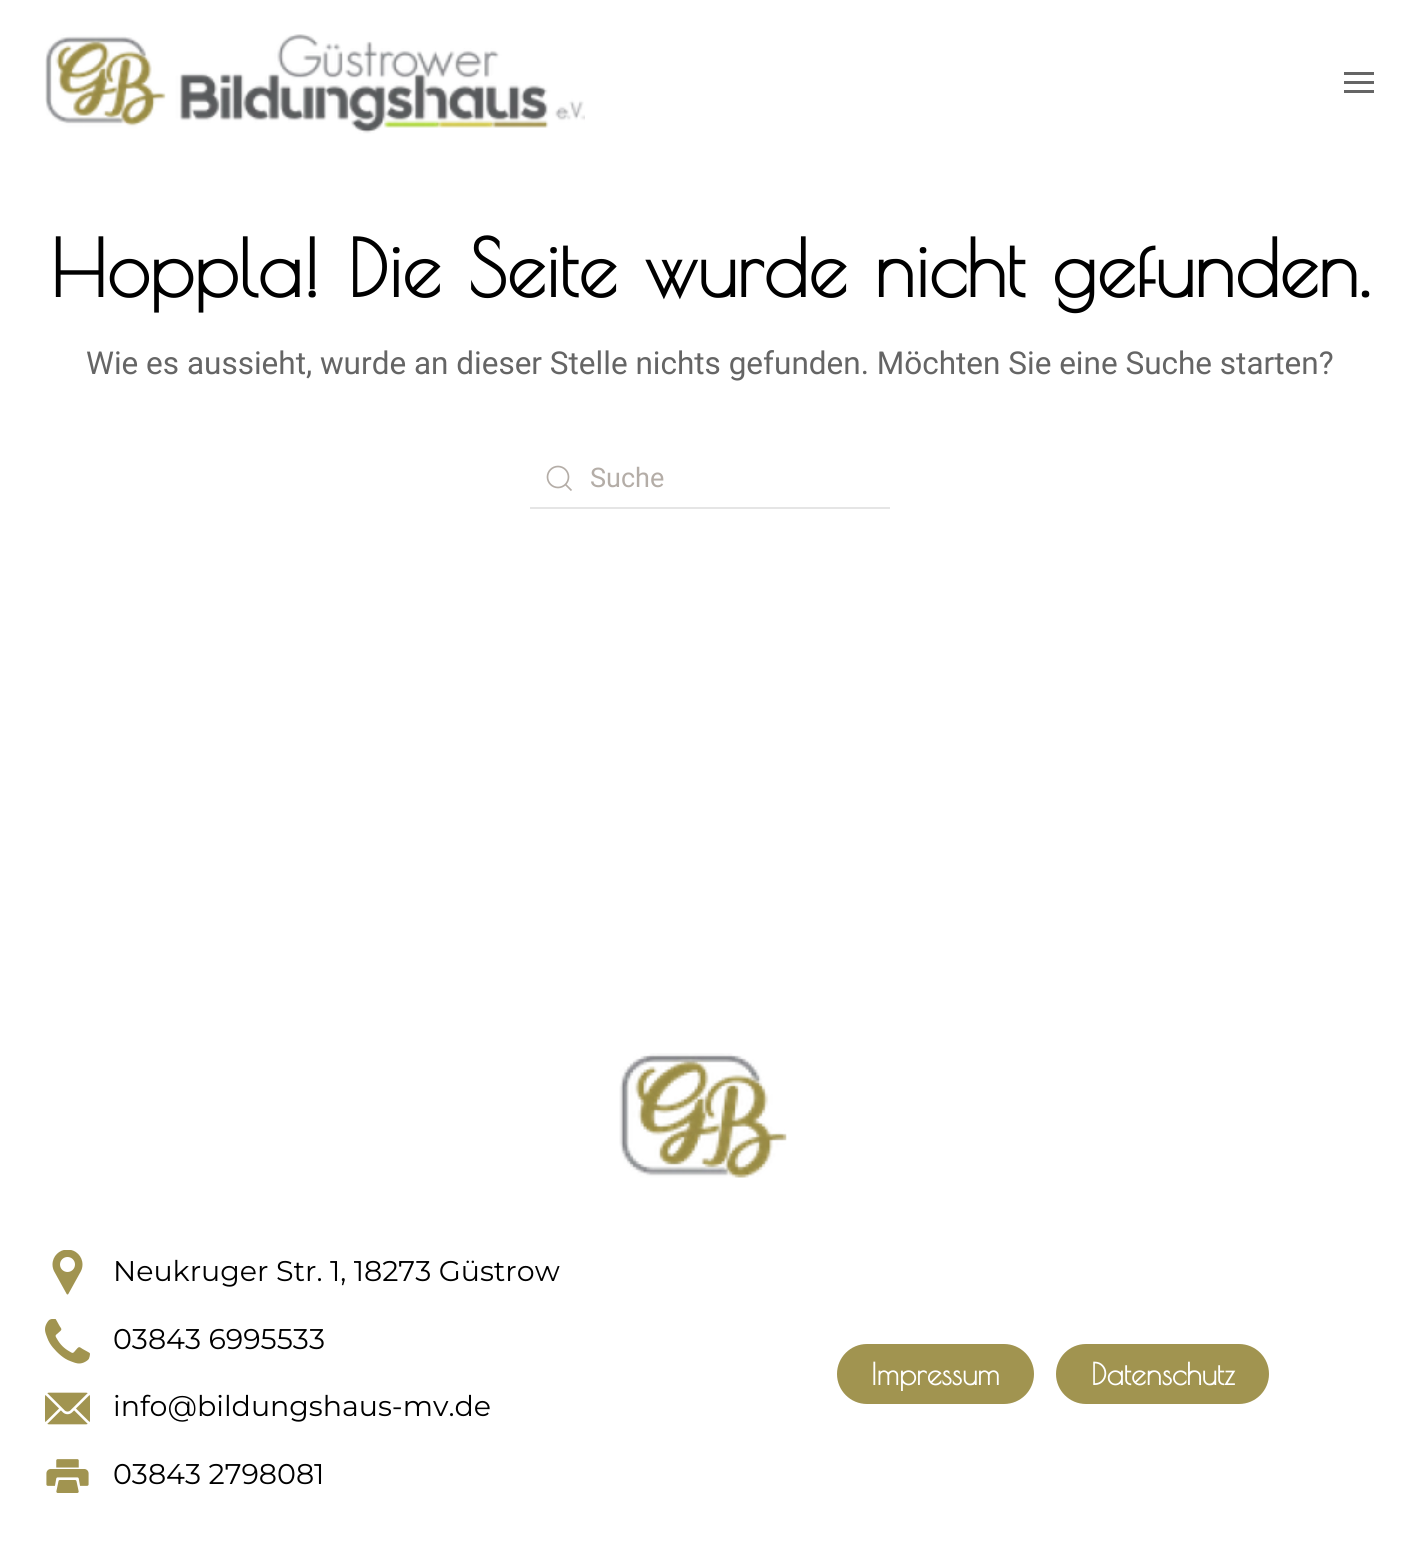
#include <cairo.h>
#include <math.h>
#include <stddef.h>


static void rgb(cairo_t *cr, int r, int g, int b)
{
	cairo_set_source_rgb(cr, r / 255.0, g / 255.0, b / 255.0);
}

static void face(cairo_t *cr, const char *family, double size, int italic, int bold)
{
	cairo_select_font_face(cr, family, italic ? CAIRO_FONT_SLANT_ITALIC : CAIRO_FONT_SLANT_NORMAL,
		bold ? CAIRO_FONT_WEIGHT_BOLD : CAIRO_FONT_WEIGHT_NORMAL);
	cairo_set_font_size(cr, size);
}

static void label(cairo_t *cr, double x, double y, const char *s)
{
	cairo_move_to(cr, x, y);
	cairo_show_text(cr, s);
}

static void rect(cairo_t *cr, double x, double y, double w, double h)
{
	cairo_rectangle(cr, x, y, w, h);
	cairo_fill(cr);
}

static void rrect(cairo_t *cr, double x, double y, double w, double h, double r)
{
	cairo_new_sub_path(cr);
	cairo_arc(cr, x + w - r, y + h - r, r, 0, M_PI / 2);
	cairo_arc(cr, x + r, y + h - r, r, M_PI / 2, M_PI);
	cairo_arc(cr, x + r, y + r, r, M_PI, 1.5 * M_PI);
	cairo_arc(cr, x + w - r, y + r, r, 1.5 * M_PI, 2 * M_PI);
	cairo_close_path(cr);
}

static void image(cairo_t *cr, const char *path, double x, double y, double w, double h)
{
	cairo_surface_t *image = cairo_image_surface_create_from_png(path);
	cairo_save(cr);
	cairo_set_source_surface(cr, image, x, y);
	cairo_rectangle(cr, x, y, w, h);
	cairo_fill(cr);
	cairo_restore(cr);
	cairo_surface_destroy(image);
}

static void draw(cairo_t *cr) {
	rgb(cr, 255, 255, 255);
	cairo_paint(cr);
	image(cr, "image0.png", 45, 34, 540, 100);
	rgb(cr, 101, 101, 101);
	rect(cr, 1344, 72, 30, 3);
	rect(cr, 1344, 81, 30, 3);
	rect(cr, 1344, 90, 30, 3);
	face(cr, "Poiret One", 78, 0, 1);
	rgb(cr, 0, 0, 0);
	label(cr, 50, 297, "Hoppla! Die Seite wurde nicht gefunden.");
	face(cr, "Roboto", 31.5, 0, 0);
	rgb(cr, 101, 101, 101);
	label(cr, 86, 374, "Wie es aussieht, wurde an dieser Stelle nichts gefunden. Möchten Sie eine Suche starten?");
	cairo_new_path(cr);
	cairo_arc(cr, 558, 477, 10.5, 0, 2 * M_PI);
	rgb(cr, 180, 173, 167);
	cairo_set_line_width(cr, 1.7);
	cairo_stroke(cr);
	cairo_new_path(cr);
	cairo_move_to(cr, 565.5, 484.5);
	cairo_line_to(cr, 571.5, 490.5);
	cairo_close_path(cr);
	cairo_stroke(cr);
	rgb(cr, 229, 229, 229);
	rect(cr, 530, 507, 360, 2);
	face(cr, "Roboto", 27, 0, 0);
	rgb(cr, 180, 173, 167);
	label(cr, 590, 487, "Suche");
	image(cr, "image1.png", 619, 1053, 168, 125);
	image(cr, "image2.png", 52, 1250, 31, 45);
	face(cr, "Montserrat Thin", 28.5, 0, 0);
	rgb(cr, 0, 0, 0);
	label(cr, 113, 1281, "Neukruger Str. 1, 18273 Güstrow");
	image(cr, "image3.png", 45, 1319, 45, 45);
	label(cr, 113, 1349, "03843 6995533");
	image(cr, "image4.png", 45, 1392, 45, 33);
	label(cr, 113, 1416, "info@bildungshaus-mv.de");
	image(cr, "image5.png", 46, 1459, 43, 34);
	label(cr, 113, 1484, "03843 2798081");
	rgb(cr, 161, 148, 80);
	rrect(cr, 837, 1344, 197, 60, 30);
	cairo_fill(cr);
	face(cr, "Poiret One", 30, 0, 1);
	rgb(cr, 255, 255, 255);
	label(cr, 871, 1385, "Impressum");
	rgb(cr, 161, 148, 80);
	rrect(cr, 1056, 1344, 213, 60, 30);
	cairo_fill(cr);
	rgb(cr, 255, 255, 255);
	label(cr, 1091, 1385, "Datenschutz");
}

int main(void) {
	cairo_surface_t *surface = cairo_image_surface_create(CAIRO_FORMAT_RGB24, 1419, 1558);
	cairo_t *cr = cairo_create(surface);
	cairo_font_options_t *options = cairo_font_options_create();
	cairo_font_options_set_hint_metrics(options, CAIRO_HINT_METRICS_OFF);
	cairo_font_options_set_hint_style(options, CAIRO_HINT_STYLE_NONE);
	cairo_set_font_options(cr, options);
	cairo_set_miter_limit(cr, 4);
	draw(cr);
	cairo_surface_write_to_png(surface, "render.png");
	cairo_font_options_destroy(options);
	cairo_destroy(cr);
	cairo_surface_destroy(surface);
	return 0;
}
